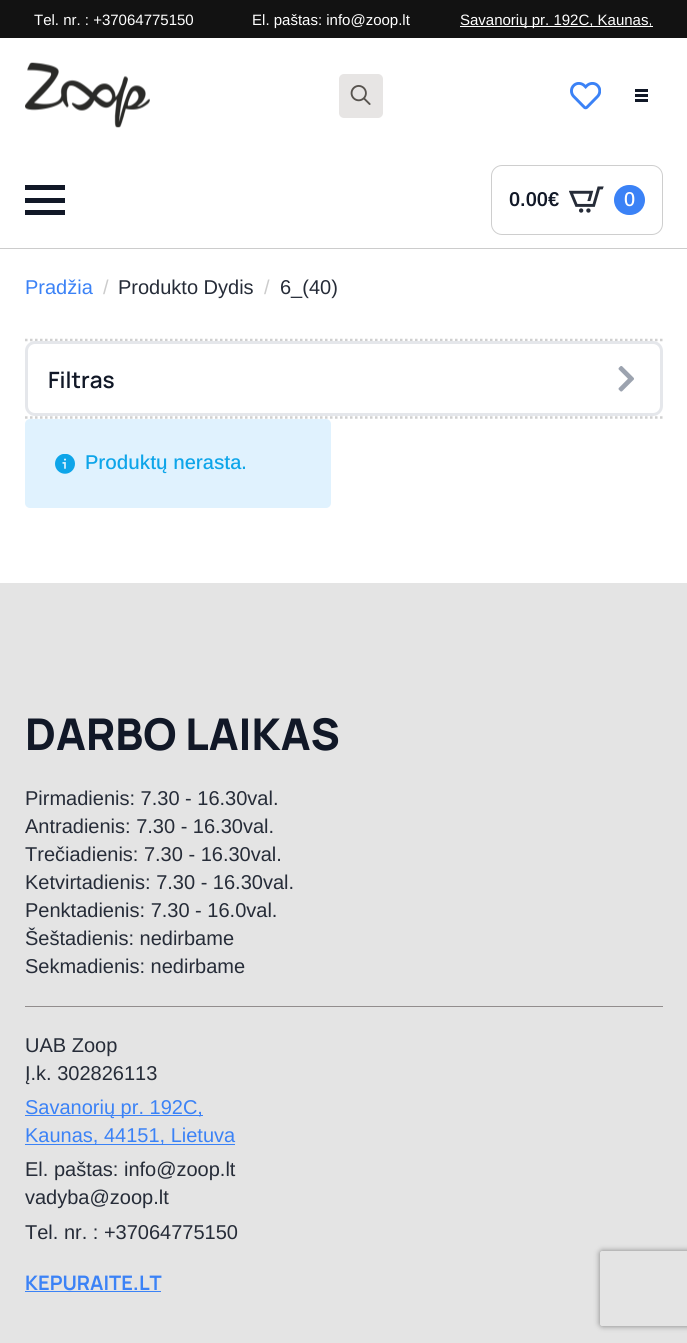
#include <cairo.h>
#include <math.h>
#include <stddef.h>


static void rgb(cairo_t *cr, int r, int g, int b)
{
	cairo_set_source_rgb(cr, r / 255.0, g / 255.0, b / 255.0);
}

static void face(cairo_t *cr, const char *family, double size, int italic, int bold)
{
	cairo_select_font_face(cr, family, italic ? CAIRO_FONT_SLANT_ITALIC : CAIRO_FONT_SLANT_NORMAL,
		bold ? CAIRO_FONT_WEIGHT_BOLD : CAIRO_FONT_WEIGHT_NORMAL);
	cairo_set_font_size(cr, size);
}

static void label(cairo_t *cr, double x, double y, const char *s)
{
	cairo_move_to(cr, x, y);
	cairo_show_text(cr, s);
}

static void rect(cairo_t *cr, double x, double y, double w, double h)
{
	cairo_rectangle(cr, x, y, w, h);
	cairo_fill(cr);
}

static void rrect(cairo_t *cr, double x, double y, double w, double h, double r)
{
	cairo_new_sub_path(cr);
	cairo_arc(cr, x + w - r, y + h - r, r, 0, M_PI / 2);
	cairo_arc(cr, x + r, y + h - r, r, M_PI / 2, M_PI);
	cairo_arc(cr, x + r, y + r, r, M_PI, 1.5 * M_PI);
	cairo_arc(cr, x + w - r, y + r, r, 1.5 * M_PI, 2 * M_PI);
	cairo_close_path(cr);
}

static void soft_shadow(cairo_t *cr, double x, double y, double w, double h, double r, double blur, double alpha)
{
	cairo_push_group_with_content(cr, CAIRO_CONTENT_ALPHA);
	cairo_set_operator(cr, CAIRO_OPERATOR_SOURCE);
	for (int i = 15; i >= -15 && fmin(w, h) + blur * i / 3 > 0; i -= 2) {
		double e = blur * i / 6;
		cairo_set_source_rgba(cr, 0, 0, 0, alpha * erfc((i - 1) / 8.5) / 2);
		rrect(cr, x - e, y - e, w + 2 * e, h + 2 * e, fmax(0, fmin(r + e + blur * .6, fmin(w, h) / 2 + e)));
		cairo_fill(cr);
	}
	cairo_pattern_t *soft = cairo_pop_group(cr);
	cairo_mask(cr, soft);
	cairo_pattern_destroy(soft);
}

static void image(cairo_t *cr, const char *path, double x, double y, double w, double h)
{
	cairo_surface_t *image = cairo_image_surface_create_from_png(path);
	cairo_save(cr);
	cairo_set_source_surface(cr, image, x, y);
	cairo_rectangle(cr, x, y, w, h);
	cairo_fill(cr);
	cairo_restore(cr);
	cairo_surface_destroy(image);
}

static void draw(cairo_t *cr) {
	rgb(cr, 255, 255, 255);
	cairo_paint(cr);
	rgb(cr, 18, 18, 18);
	rect(cr, 0, 0, 687, 38);
	face(cr, "Arimo", 15, 0, 0);
	rgb(cr, 255, 255, 255);
	label(cr, 34, 25, "Tel. nr. : +37064775150              El. paštas: info@zoop.lt");
	rect(cr, 460, 26, 193, 1);
	label(cr, 460, 25, "Savanorių pr. 192C, Kaunas,");
	image(cr, "image0.png", 25, 62, 125, 66);
	rgb(cr, 231, 229, 228);
	rrect(cr, 339, 74, 44, 44, 5);
	cairo_fill(cr);
	image(cr, "image1.png", 350, 85, 21, 20);
	image(cr, "image2.png", 570, 82, 31, 28);
	rgb(cr, 17, 24, 39);
	rect(cr, 635, 94, 13, 3);
	rect(cr, 635, 89, 13, 3);
	rect(cr, 635, 99, 13, 3);
	rect(cr, 25, 198, 40, 5);
	rect(cr, 25, 185, 40, 5);
	rect(cr, 25, 210, 40, 5);
	rrect(cr, 491.5, 165.5, 171, 69, 10.5);
	rgb(cr, 206, 206, 206);
	cairo_set_line_width(cr, 1);
	cairo_stroke(cr);
	face(cr, "Arimo SemiBold", 20, 0, 0);
	rgb(cr, 17, 24, 39);
	label(cr, 509, 206, "0.00€");
	image(cr, "image3.png", 569, 186, 35, 27);
	rgb(cr, 59, 130, 246);
	rrect(cr, 614, 185, 31, 30, 15);
	cairo_fill(cr);
	face(cr, "Arimo Medium", 20, 0, 0);
	rgb(cr, 255, 255, 255);
	label(cr, 624, 206, "0");
	rgb(cr, 204, 204, 204);
	rect(cr, 0, 248, 687, 1);
	face(cr, "Arimo", 20, 0, 0);
	rgb(cr, 59, 130, 246);
	label(cr, 25, 294, "Pradžia");
	rgb(cr, 204, 204, 204);
	label(cr, 103, 294, "/");
	rgb(cr, 38, 44, 56);
	label(cr, 118, 294, "Produkto Dydis");
	rgb(cr, 204, 204, 204);
	label(cr, 264, 294, "/");
	rgb(cr, 38, 44, 56);
	label(cr, 280, 294, "6_(40)");
	cairo_new_path(cr);
	cairo_move_to(cr, 25, 340);
	cairo_line_to(cr, 662.5, 340);
	rgb(cr, 208, 208, 208);
	cairo_set_line_width(cr, 2.5);
	cairo_set_dash(cr, (double[]){2.5, 2.5}, 2, 0);
	cairo_stroke(cr);
	rrect(cr, 26.5, 342.5, 635, 72, 8.5);
	rgb(cr, 229, 231, 235);
	cairo_set_line_width(cr, 3);
	cairo_set_dash(cr, NULL, 0, 0);
	cairo_stroke(cr);
	face(cr, "Manrope SemiBold", 22.5, 0, 0);
	rgb(cr, 17, 24, 39);
	label(cr, 48, 388, "Filtras");
	image(cr, "image4.png", 618, 366, 16, 26);
	cairo_new_path(cr);
	cairo_move_to(cr, 25, 417.5);
	cairo_line_to(cr, 662.5, 417.5);
	rgb(cr, 208, 208, 208);
	cairo_set_line_width(cr, 2.5);
	cairo_set_dash(cr, (double[]){2.5, 2.5}, 2, 0);
	cairo_stroke(cr);
	rgb(cr, 224, 242, 254);
	rrect(cr, 25, 419, 306, 89, 5);
	cairo_fill(cr);
	image(cr, "image5.png", 55, 454, 20, 20);
	face(cr, "Arimo Medium", 20, 0, 0);
	rgb(cr, 14, 165, 233);
	label(cr, 85, 469, "Produktų nerasta.");
	rgb(cr, 228, 228, 228);
	rect(cr, 0, 583, 687, 760);
	face(cr, "Manrope ExtraBold", 43.75, 0, 0);
	rgb(cr, 17, 24, 39);
	label(cr, 25, 750, "DARBO LAIKAS");
	face(cr, "Arimo", 20, 0, 0);
	rgb(cr, 38, 44, 56);
	label(cr, 25, 805, "Pirmadienis: 7.30 - 16.30val.");
	label(cr, 25, 833, "Antradienis: 7.30 - 16.30val.");
	label(cr, 25, 861, "Trečiadienis: 7.30 - 16.30val.");
	label(cr, 25, 889, "Ketvirtadienis: 7.30 - 16.30val.");
	label(cr, 25, 917, "Penktadienis: 7.30 - 16.0val.");
	label(cr, 25, 945, "Šeštadienis: nedirbame");
	label(cr, 25, 973, "Sekmadienis: nedirbame");
	rgb(cr, 146, 141, 141);
	rect(cr, 25, 1006, 638, 1);
	rgb(cr, 38, 44, 56);
	label(cr, 25, 1052, "UAB Zoop");
	label(cr, 25, 1080, "Į.k. 302826113");
	rgb(cr, 59, 130, 246);
	rect(cr, 25, 1115, 178, 1);
	label(cr, 25, 1114, "Savanorių pr. 192C,");
	rect(cr, 25, 1144, 210, 1);
	label(cr, 25, 1142, "Kaunas, 44151, Lietuva");
	rgb(cr, 38, 44, 56);
	label(cr, 25, 1176, "El. paštas: info@zoop.lt");
	label(cr, 25, 1204, "vadyba@zoop.lt");
	label(cr, 25, 1239, "Tel. nr. : +37064775150");
	face(cr, "Manrope", 20, 0, 1);
	rgb(cr, 59, 130, 246);
	label(cr, 25, 1290, "KEPURAITE.LT");
	rect(cr, 25, 1291, 136, 1);
	cairo_save(cr);
	cairo_set_fill_rule(cr, CAIRO_FILL_RULE_EVEN_ODD);
	cairo_new_path(cr);
	cairo_move_to(cr, 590, 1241);
	cairo_line_to(cr, 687, 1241);
	cairo_line_to(cr, 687, 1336);
	cairo_line_to(cr, 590, 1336);
	cairo_close_path(cr);
	cairo_move_to(cr, 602.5, 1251);
	cairo_line_to(cr, 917.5, 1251);
	cairo_curve_to(cr, 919, 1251, 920, 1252, 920, 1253.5);
	cairo_line_to(cr, 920, 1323.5);
	cairo_curve_to(cr, 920, 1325, 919, 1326, 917.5, 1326);
	cairo_line_to(cr, 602.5, 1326);
	cairo_curve_to(cr, 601, 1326, 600, 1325, 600, 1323.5);
	cairo_line_to(cr, 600, 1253.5);
	cairo_curve_to(cr, 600, 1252, 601, 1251, 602.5, 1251);
	cairo_close_path(cr);
	cairo_clip(cr);
	rgb(cr, 128, 128, 128);
	soft_shadow(cr, 600, 1251, 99, 75, 2.5, 3, 1);
	cairo_restore(cr);
}

int main(void) {
	cairo_surface_t *surface = cairo_image_surface_create(CAIRO_FORMAT_RGB24, 687, 1343);
	cairo_t *cr = cairo_create(surface);
	cairo_font_options_t *options = cairo_font_options_create();
	cairo_font_options_set_hint_metrics(options, CAIRO_HINT_METRICS_OFF);
	cairo_font_options_set_hint_style(options, CAIRO_HINT_STYLE_NONE);
	cairo_set_font_options(cr, options);
	cairo_set_miter_limit(cr, 4);
	draw(cr);
	cairo_surface_write_to_png(surface, "render.png");
	cairo_font_options_destroy(options);
	cairo_destroy(cr);
	cairo_surface_destroy(surface);
	return 0;
}
